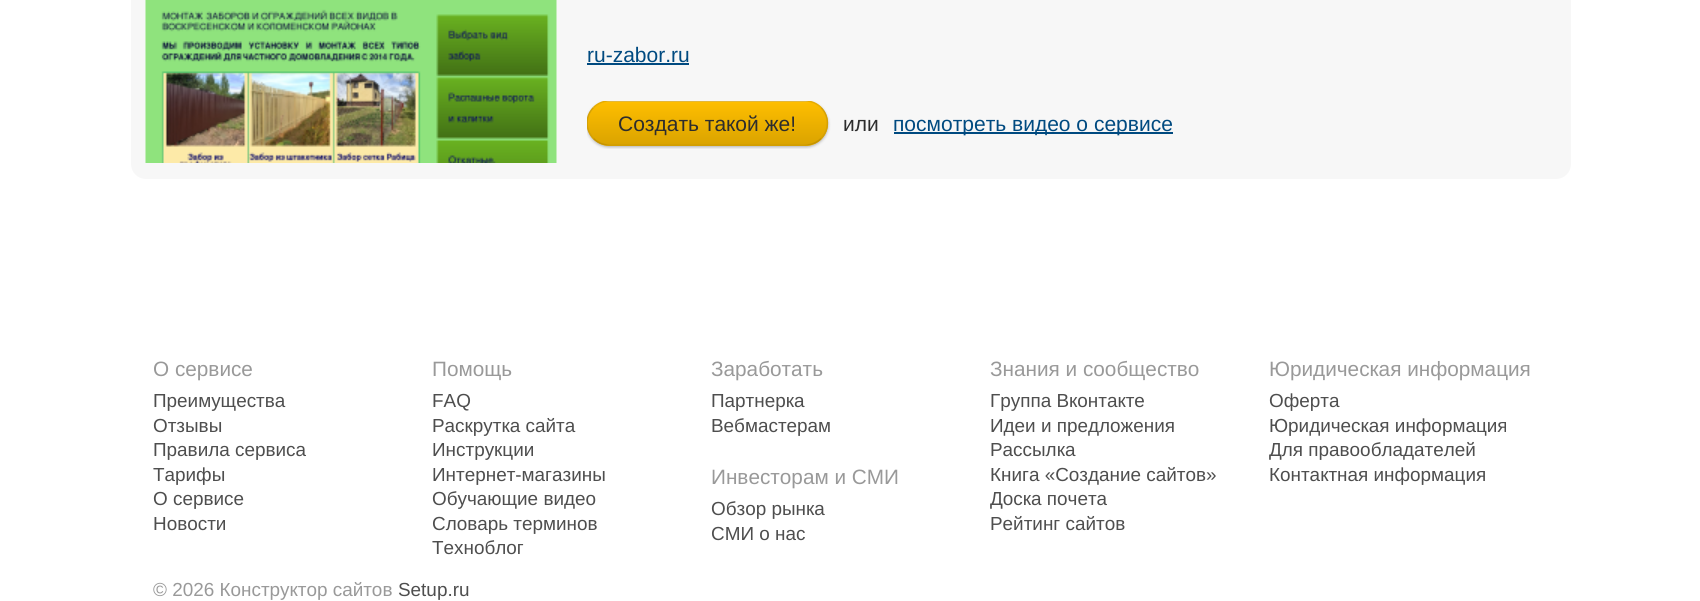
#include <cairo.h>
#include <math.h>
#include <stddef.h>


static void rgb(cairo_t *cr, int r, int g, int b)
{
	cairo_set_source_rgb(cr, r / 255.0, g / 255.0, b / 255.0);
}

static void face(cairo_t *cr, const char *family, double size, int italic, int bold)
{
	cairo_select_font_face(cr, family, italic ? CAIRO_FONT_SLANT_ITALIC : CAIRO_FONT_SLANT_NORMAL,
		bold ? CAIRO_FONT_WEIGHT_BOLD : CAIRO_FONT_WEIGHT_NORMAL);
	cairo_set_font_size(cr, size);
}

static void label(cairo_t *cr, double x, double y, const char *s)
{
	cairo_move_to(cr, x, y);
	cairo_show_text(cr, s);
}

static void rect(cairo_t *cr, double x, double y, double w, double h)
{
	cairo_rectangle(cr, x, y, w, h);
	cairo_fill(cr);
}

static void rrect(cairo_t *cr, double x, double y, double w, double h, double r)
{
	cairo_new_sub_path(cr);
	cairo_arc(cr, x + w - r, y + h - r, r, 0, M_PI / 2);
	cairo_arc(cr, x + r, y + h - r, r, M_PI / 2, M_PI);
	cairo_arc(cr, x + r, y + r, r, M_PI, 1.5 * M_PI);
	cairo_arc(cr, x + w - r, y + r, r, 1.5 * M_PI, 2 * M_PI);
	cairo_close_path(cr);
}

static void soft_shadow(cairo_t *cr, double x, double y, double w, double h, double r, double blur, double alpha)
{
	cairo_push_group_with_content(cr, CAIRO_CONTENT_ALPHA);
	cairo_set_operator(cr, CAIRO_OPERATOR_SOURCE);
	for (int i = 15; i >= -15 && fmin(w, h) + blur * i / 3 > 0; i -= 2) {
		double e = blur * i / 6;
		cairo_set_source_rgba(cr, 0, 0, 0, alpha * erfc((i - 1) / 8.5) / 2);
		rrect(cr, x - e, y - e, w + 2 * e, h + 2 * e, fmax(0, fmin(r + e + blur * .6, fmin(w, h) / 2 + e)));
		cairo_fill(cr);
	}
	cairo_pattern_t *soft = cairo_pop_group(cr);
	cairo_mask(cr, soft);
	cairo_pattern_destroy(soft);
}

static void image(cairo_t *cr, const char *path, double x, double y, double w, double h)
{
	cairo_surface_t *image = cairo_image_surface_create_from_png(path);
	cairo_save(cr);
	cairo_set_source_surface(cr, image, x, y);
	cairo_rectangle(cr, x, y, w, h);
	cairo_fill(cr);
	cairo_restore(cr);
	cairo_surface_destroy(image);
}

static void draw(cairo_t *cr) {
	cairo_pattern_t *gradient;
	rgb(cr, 255, 255, 255);
	cairo_paint(cr);
	rgb(cr, 247, 247, 247);
	rrect(cr, 131, -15, 1440, 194, 15);
	cairo_fill(cr);
	image(cr, "image0.png", 145, 0, 412, 163);
	face(cr, "Liberation Sans", 21, 0, 0);
	rgb(cr, 0, 74, 128);
	label(cr, 587, 62, "ru-zabor.ru");
	rect(cr, 587, 63, 102, 2);
	cairo_save(cr);
	cairo_rectangle(cr, 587, 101, 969, 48);
	cairo_clip(cr);
	rgb(cr, 0, 0, 0);
	soft_shadow(cr, 587, 102, 241, 45, 22.5, 1.5, 0.3);
	cairo_restore(cr);
	cairo_save(cr);
	rrect(cr, 587, 101, 241, 45, 22.5);
	cairo_clip(cr);
	gradient = cairo_pattern_create_linear(707, 102, 707, 144);
	cairo_pattern_add_color_stop_rgba(gradient, 0, 0.996, 0.745, 0, 1);
	cairo_pattern_add_color_stop_rgba(gradient, 1, 0.859, 0.643, 0, 1);
	cairo_set_source(cr, gradient);
	cairo_pattern_destroy(gradient);
	rect(cr, 587, 102, 241, 42);
	gradient = cairo_pattern_create_linear(707, 144, 707, 186);
	cairo_pattern_add_color_stop_rgba(gradient, 0, 0.996, 0.745, 0, 1);
	cairo_pattern_add_color_stop_rgba(gradient, 1, 0.859, 0.643, 0, 1);
	cairo_set_source(cr, gradient);
	cairo_pattern_destroy(gradient);
	rect(cr, 600, 144, 215, 2);
	cairo_restore(cr);
	cairo_save(cr);
	cairo_rectangle(cr, 587, 101, 969, 48);
	cairo_clip(cr);
	cairo_new_path(cr);
	cairo_move_to(cr, 593.5, 107.5);
	cairo_curve_to(cr, 597.5, 103.5, 603, 101, 609, 101);
	cairo_line_to(cr, 805.5, 101);
	cairo_curve_to(cr, 811.5, 101, 817, 103.5, 821, 107.5);
	rgb(cr, 230, 172, 0);
	cairo_set_line_width(cr, 1.5);
	cairo_stroke(cr);
	cairo_restore(cr);
	cairo_new_path(cr);
	cairo_move_to(cr, 821, 107.5);
	cairo_curve_to(cr, 829.5, 116, 829.5, 130, 821, 138.5);
	rgb(cr, 212, 160, 5);
	cairo_set_line_width(cr, 1.5);
	cairo_stroke(cr);
	cairo_new_path(cr);
	cairo_move_to(cr, 821, 138.5);
	cairo_curve_to(cr, 817, 142.5, 811.5, 145, 805.5, 145);
	cairo_line_to(cr, 609, 145);
	cairo_curve_to(cr, 603, 145, 597.5, 142.5, 593.5, 138.5);
	rgb(cr, 196, 147, 0);
	cairo_stroke(cr);
	cairo_save(cr);
	cairo_rectangle(cr, 587, 101, 969, 48);
	cairo_clip(cr);
	cairo_new_path(cr);
	cairo_move_to(cr, 593.5, 138.5);
	cairo_curve_to(cr, 585, 130, 585, 116, 593.5, 107.5);
	rgb(cr, 212, 160, 5);
	cairo_stroke(cr);
	cairo_restore(cr);
	rgb(cr, 45, 45, 45);
	label(cr, 618, 131, "Создать такой же!");
	label(cr, 843, 131, "или");
	rgb(cr, 0, 74, 128);
	rect(cr, 894, 132, 279, 2);
	label(cr, 893, 131, "посмотреть видео о сервисе");
	face(cr, "Liberation Sans", 20.75, 0, 0);
	rgb(cr, 153, 153, 153);
	label(cr, 153, 376, "О сервисе");
	face(cr, "Liberation Sans", 18.9, 0, 0);
	rgb(cr, 78, 78, 78);
	label(cr, 153, 407, "Преимущества");
	label(cr, 153, 432, "Отзывы");
	label(cr, 153, 456, "Правила сервиса");
	label(cr, 153, 481, "Тарифы");
	label(cr, 153, 505, "О сервисе");
	label(cr, 153, 530, "Новости");
	face(cr, "Liberation Sans", 20.75, 0, 0);
	rgb(cr, 153, 153, 153);
	label(cr, 432, 376, "Помощь");
	face(cr, "Liberation Sans", 18.9, 0, 0);
	rgb(cr, 78, 78, 78);
	label(cr, 432, 407, "FAQ");
	label(cr, 432, 432, "Раскрутка сайта");
	label(cr, 432, 456, "Инструкции");
	label(cr, 432, 481, "Интернет-магазины");
	label(cr, 432, 505, "Обучающие видео");
	label(cr, 432, 530, "Словарь терминов");
	label(cr, 432, 554, "Техноблог");
	face(cr, "Liberation Sans", 20.75, 0, 0);
	rgb(cr, 153, 153, 153);
	label(cr, 711, 376, "Заработать");
	face(cr, "Liberation Sans", 18.9, 0, 0);
	rgb(cr, 78, 78, 78);
	label(cr, 711, 407, "Партнерка");
	label(cr, 711, 432, "Вебмастерам");
	face(cr, "Liberation Sans", 20.75, 0, 0);
	rgb(cr, 153, 153, 153);
	label(cr, 711, 484, "Инвесторам и СМИ");
	face(cr, "Liberation Sans", 18.9, 0, 0);
	rgb(cr, 78, 78, 78);
	label(cr, 711, 515, "Обзор рынка");
	label(cr, 711, 540, "СМИ о нас");
	face(cr, "Liberation Sans", 20.75, 0, 0);
	rgb(cr, 153, 153, 153);
	label(cr, 990, 376, "Знания и сообщество");
	face(cr, "Liberation Sans", 18.9, 0, 0);
	rgb(cr, 78, 78, 78);
	label(cr, 990, 407, "Группа Вконтакте");
	label(cr, 990, 432, "Идеи и предложения");
	label(cr, 990, 456, "Рассылка");
	label(cr, 990, 481, "Книга «Создание сайтов»");
	label(cr, 990, 505, "Доска почета");
	label(cr, 990, 530, "Рейтинг сайтов");
	face(cr, "Liberation Sans", 20.75, 0, 0);
	rgb(cr, 153, 153, 153);
	label(cr, 1269, 376, "Юридическая информация");
	face(cr, "Liberation Sans", 18.9, 0, 0);
	rgb(cr, 78, 78, 78);
	label(cr, 1269, 407, "Оферта");
	label(cr, 1269, 432, "Юридическая информация");
	label(cr, 1269, 456, "Для правообладателей");
	label(cr, 1269, 481, "Контактная информация");
	rgb(cr, 153, 153, 153);
	label(cr, 153, 596, "© 2026 Конструктор сайтов");
	rgb(cr, 78, 78, 78);
	label(cr, 398, 596, "Setup.ru");
}

int main(void) {
	cairo_surface_t *surface = cairo_image_surface_create(CAIRO_FORMAT_RGB24, 1700, 601);
	cairo_t *cr = cairo_create(surface);
	cairo_font_options_t *options = cairo_font_options_create();
	cairo_font_options_set_hint_metrics(options, CAIRO_HINT_METRICS_OFF);
	cairo_font_options_set_hint_style(options, CAIRO_HINT_STYLE_NONE);
	cairo_set_font_options(cr, options);
	cairo_set_miter_limit(cr, 4);
	draw(cr);
	cairo_surface_write_to_png(surface, "render.png");
	cairo_font_options_destroy(options);
	cairo_destroy(cr);
	cairo_surface_destroy(surface);
	return 0;
}
